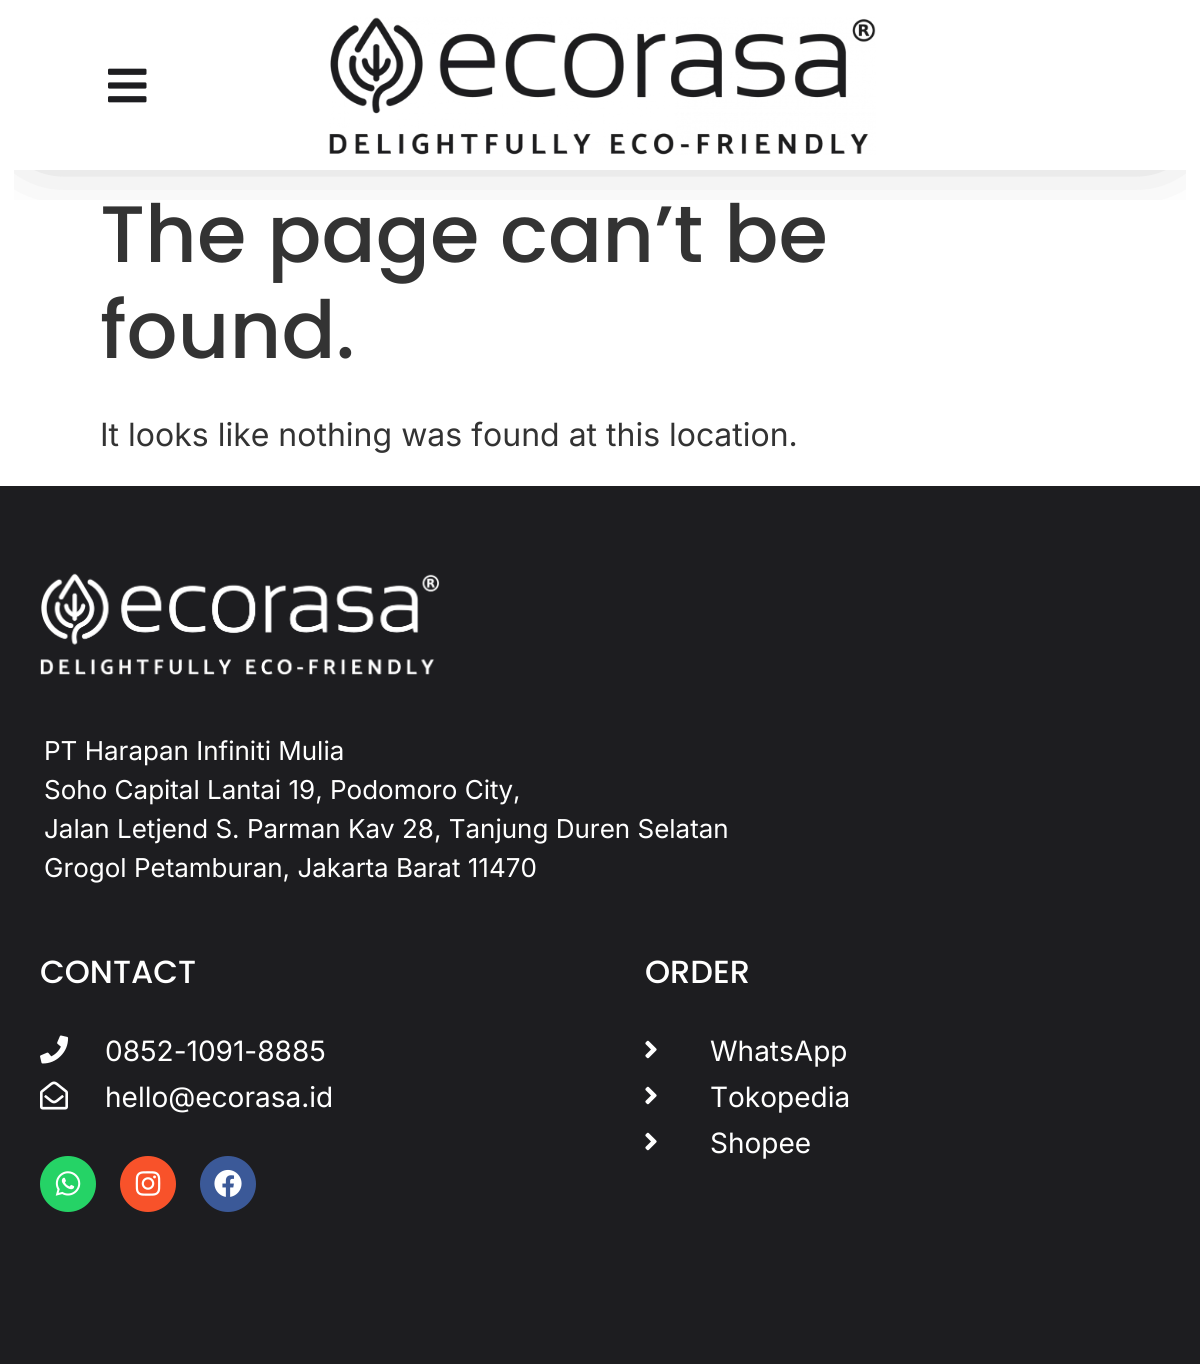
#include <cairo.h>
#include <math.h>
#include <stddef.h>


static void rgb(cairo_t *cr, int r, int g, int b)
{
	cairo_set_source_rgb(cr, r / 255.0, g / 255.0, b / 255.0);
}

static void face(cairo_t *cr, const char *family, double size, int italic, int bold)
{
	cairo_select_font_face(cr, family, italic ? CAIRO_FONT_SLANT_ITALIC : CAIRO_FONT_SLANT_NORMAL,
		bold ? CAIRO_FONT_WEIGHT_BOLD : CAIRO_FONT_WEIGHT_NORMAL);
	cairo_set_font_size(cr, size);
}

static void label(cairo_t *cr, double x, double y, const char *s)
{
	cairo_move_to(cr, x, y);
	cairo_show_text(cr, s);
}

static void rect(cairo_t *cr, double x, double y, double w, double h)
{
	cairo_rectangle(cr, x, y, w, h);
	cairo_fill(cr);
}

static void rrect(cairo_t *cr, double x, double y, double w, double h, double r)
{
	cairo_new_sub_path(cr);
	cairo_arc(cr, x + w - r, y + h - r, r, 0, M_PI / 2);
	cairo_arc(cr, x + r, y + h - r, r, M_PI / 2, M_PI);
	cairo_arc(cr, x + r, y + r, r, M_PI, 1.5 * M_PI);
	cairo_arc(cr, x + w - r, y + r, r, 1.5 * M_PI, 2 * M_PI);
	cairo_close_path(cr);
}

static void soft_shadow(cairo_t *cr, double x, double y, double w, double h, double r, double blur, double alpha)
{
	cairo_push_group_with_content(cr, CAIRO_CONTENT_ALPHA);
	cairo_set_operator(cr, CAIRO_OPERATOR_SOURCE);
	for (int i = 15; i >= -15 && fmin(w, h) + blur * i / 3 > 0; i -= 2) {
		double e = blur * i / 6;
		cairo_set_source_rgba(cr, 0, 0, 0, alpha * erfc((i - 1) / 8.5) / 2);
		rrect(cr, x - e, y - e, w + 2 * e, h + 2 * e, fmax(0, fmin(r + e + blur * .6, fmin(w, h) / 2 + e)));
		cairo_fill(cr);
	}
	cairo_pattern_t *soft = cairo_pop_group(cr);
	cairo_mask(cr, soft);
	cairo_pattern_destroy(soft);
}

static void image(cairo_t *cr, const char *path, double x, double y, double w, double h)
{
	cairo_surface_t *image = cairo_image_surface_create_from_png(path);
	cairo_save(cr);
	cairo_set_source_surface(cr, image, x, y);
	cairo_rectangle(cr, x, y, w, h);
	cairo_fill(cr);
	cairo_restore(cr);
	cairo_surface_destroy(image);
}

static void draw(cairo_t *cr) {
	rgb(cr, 255, 255, 255);
	cairo_paint(cr);
	cairo_save(cr);
	cairo_rectangle(cr, 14, 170, 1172, 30);
	cairo_clip(cr);
	rgb(cr, 0, 0, 0);
	soft_shadow(cr, 40, 40, 1120, 90, 0, 40, 0.5);
	cairo_restore(cr);
	image(cr, "image0.png", 108, 68, 39, 35);
	image(cr, "image1.png", 329, 17, 547, 138);
	face(cr, "Poppins Medium", 80, 0, 0);
	rgb(cr, 51, 51, 51);
	label(cr, 100, 262, "The page can’t be");
	label(cr, 100, 358, "found.");
	face(cr, "Inter", 32, 0, 0);
	label(cr, 100, 446, "It looks like nothing was found at this location.");
	rgb(cr, 29, 29, 32);
	rect(cr, 0, 486, 1200, 878);
	image(cr, "image2.png", 40, 573, 400, 102);
	face(cr, "Inter", 26, 0, 0);
	rgb(cr, 255, 255, 255);
	label(cr, 44, 760, "PT Harapan Infiniti Mulia");
	label(cr, 44, 799, "Soho Capital Lantai 19, Podomoro City,");
	label(cr, 44, 838, "Jalan Letjend S. Parman Kav 28, Tanjung Duren Selatan");
	label(cr, 44, 877, "Grogol Petamburan, Jakarta Barat 11470");
	face(cr, "Poppins Medium", 32, 0, 0);
	label(cr, 40, 983, "CONTACT");
	image(cr, "image3.png", 40, 1035, 29, 29);
	face(cr, "Inter", 28, 0, 0);
	label(cr, 105, 1061, "0852-1091-8885");
	image(cr, "image4.png", 40, 1081, 28, 29);
	label(cr, 105, 1107, "hello@ecorasa.id");
	rgb(cr, 37, 211, 102);
	cairo_new_path(cr);
	cairo_arc(cr, 68, 1184, 28, 0, 2 * M_PI);
	cairo_fill(cr);
	image(cr, "image5.png", 55, 1171, 26, 25);
	rgb(cr, 248, 82, 42);
	cairo_arc(cr, 148, 1184, 28, 0, 2 * M_PI);
	cairo_fill(cr);
	image(cr, "image6.png", 135, 1171, 26, 25);
	rgb(cr, 59, 89, 152);
	cairo_arc(cr, 228, 1184, 28, 0, 2 * M_PI);
	cairo_fill(cr);
	image(cr, "image7.png", 214, 1169, 28, 28);
	face(cr, "Poppins Medium", 32, 0, 0);
	rgb(cr, 255, 255, 255);
	label(cr, 645, 983, "ORDER");
	image(cr, "image8.png", 645, 1040, 12, 19);
	face(cr, "Inter", 28, 0, 0);
	label(cr, 710, 1061, "WhatsApp");
	image(cr, "image8.png", 645, 1086, 12, 19);
	label(cr, 710, 1107, "Tokopedia");
	image(cr, "image8.png", 645, 1132, 12, 19);
	label(cr, 710, 1153, "Shopee");
}

int main(void) {
	cairo_surface_t *surface = cairo_image_surface_create(CAIRO_FORMAT_RGB24, 1200, 1364);
	cairo_t *cr = cairo_create(surface);
	cairo_font_options_t *options = cairo_font_options_create();
	cairo_font_options_set_hint_metrics(options, CAIRO_HINT_METRICS_OFF);
	cairo_font_options_set_hint_style(options, CAIRO_HINT_STYLE_NONE);
	cairo_set_font_options(cr, options);
	cairo_set_miter_limit(cr, 4);
	draw(cr);
	cairo_surface_write_to_png(surface, "render.png");
	cairo_font_options_destroy(options);
	cairo_destroy(cr);
	cairo_surface_destroy(surface);
	return 0;
}
